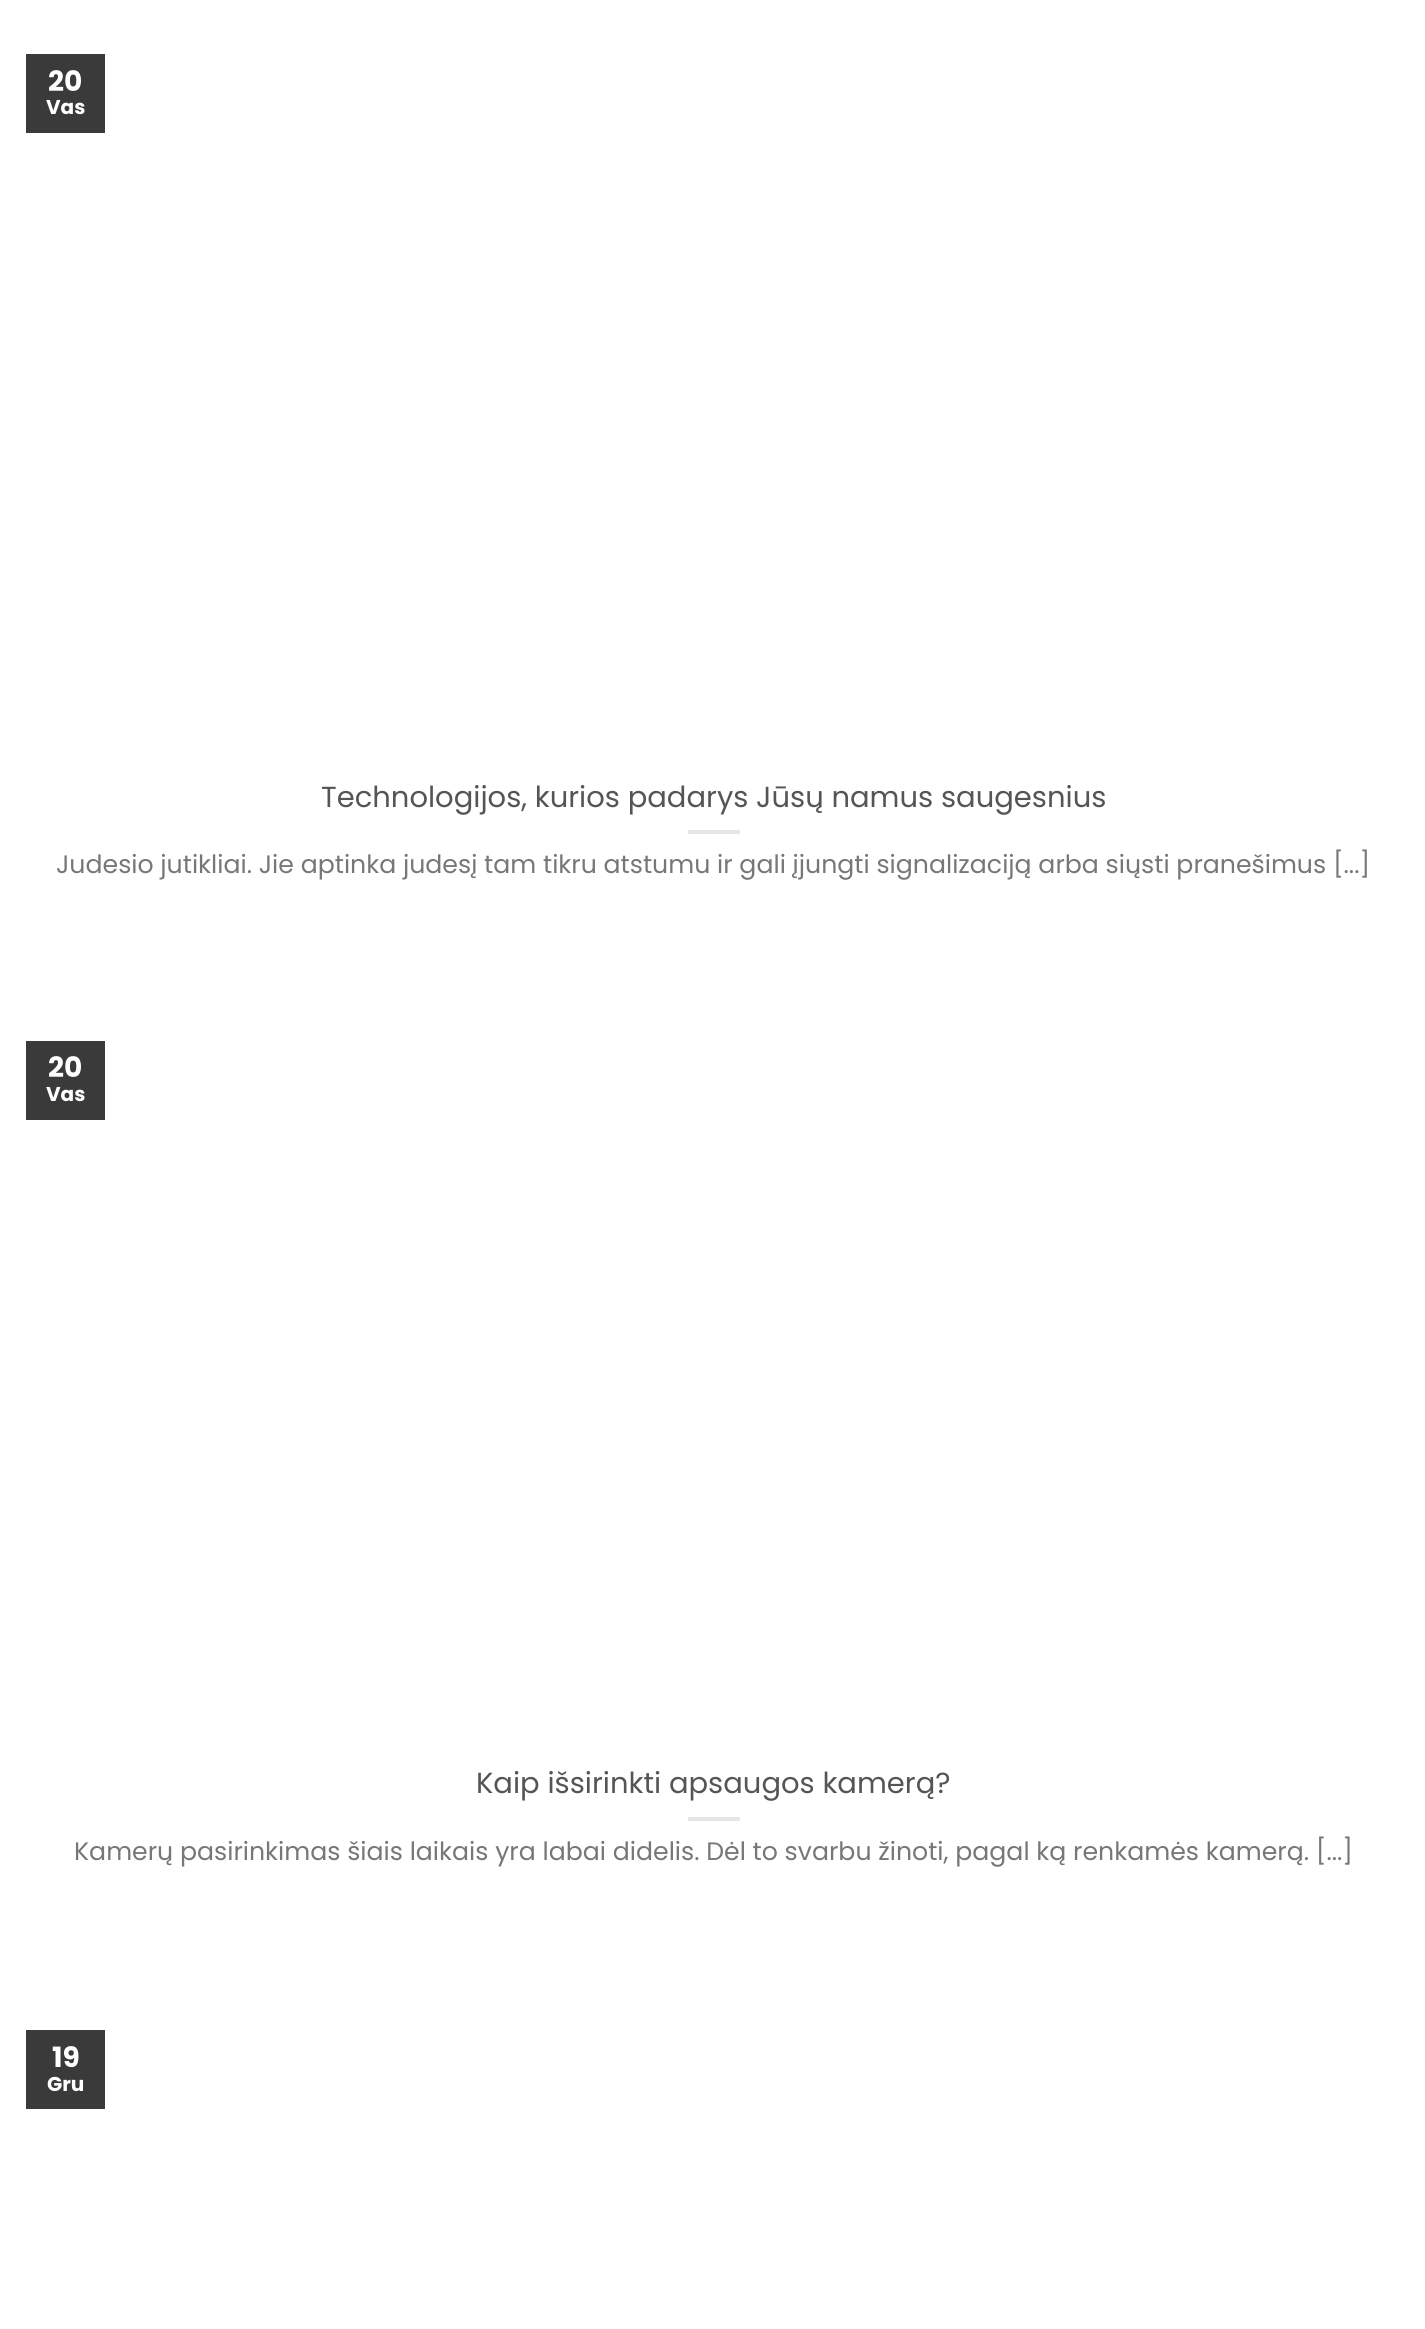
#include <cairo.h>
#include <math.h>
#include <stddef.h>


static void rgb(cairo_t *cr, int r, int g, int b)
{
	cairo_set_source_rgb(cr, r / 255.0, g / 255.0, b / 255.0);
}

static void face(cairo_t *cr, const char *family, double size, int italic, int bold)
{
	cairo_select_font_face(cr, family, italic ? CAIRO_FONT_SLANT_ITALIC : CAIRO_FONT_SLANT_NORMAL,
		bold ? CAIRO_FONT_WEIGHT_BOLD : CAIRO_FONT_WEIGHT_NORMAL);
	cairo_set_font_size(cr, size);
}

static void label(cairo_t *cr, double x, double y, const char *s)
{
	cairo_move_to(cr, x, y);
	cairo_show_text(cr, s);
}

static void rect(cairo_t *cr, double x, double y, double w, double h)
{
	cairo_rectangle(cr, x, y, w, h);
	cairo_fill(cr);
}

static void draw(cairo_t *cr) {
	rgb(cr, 255, 255, 255);
	cairo_paint(cr);
	rgb(cr, 58, 58, 58);
	rect(cr, 26, 54, 79, 79);
	face(cr, "Poppins", 28, 0, 1);
	rgb(cr, 255, 255, 255);
	label(cr, 48, 91, "20");
	face(cr, "Poppins", 20, 0, 1);
	label(cr, 46, 114, "Vas");
	face(cr, "Poppins", 29, 0, 0);
	rgb(cr, 85, 85, 85);
	label(cr, 321, 807, "Technologijos, kurios padarys Jūsų namus saugesnius");
	rgb(cr, 230, 230, 230);
	rect(cr, 688, 830, 52, 4);
	face(cr, "Poppins", 25.2, 0, 0);
	rgb(cr, 119, 119, 119);
	label(cr, 56, 873, "Judesio jutikliai. Jie aptinka judesį tam tikru atstumu ir gali įjungti signalizaciją arba siųsti pranešimus [...]");
	rgb(cr, 58, 58, 58);
	rect(cr, 26, 1041, 79, 79);
	face(cr, "Poppins", 28, 0, 1);
	rgb(cr, 255, 255, 255);
	label(cr, 48, 1077, "20");
	face(cr, "Poppins", 20, 0, 1);
	label(cr, 46, 1101, "Vas");
	face(cr, "Poppins", 29, 0, 0);
	rgb(cr, 85, 85, 85);
	label(cr, 476, 1793, "Kaip išsirinkti apsaugos kamerą?");
	rgb(cr, 230, 230, 230);
	rect(cr, 688, 1817, 52, 4);
	face(cr, "Poppins", 25.2, 0, 0);
	rgb(cr, 119, 119, 119);
	label(cr, 74, 1860, "Kamerų pasirinkimas šiais laikais yra labai didelis. Dėl to svarbu žinoti, pagal ką renkamės kamerą. [...]");
	rgb(cr, 58, 58, 58);
	rect(cr, 26, 2030, 79, 79);
	face(cr, "Poppins", 28, 0, 1);
	rgb(cr, 255, 255, 255);
	label(cr, 52, 2067, "19");
	face(cr, "Poppins", 20, 0, 1);
	label(cr, 47, 2091, "Gru");
}

int main(void) {
	cairo_surface_t *surface = cairo_image_surface_create(CAIRO_FORMAT_RGB24, 1425, 2329);
	cairo_t *cr = cairo_create(surface);
	cairo_font_options_t *options = cairo_font_options_create();
	cairo_font_options_set_hint_metrics(options, CAIRO_HINT_METRICS_OFF);
	cairo_font_options_set_hint_style(options, CAIRO_HINT_STYLE_NONE);
	cairo_set_font_options(cr, options);
	cairo_set_miter_limit(cr, 4);
	draw(cr);
	cairo_surface_write_to_png(surface, "render.png");
	cairo_font_options_destroy(options);
	cairo_destroy(cr);
	cairo_surface_destroy(surface);
	return 0;
}
